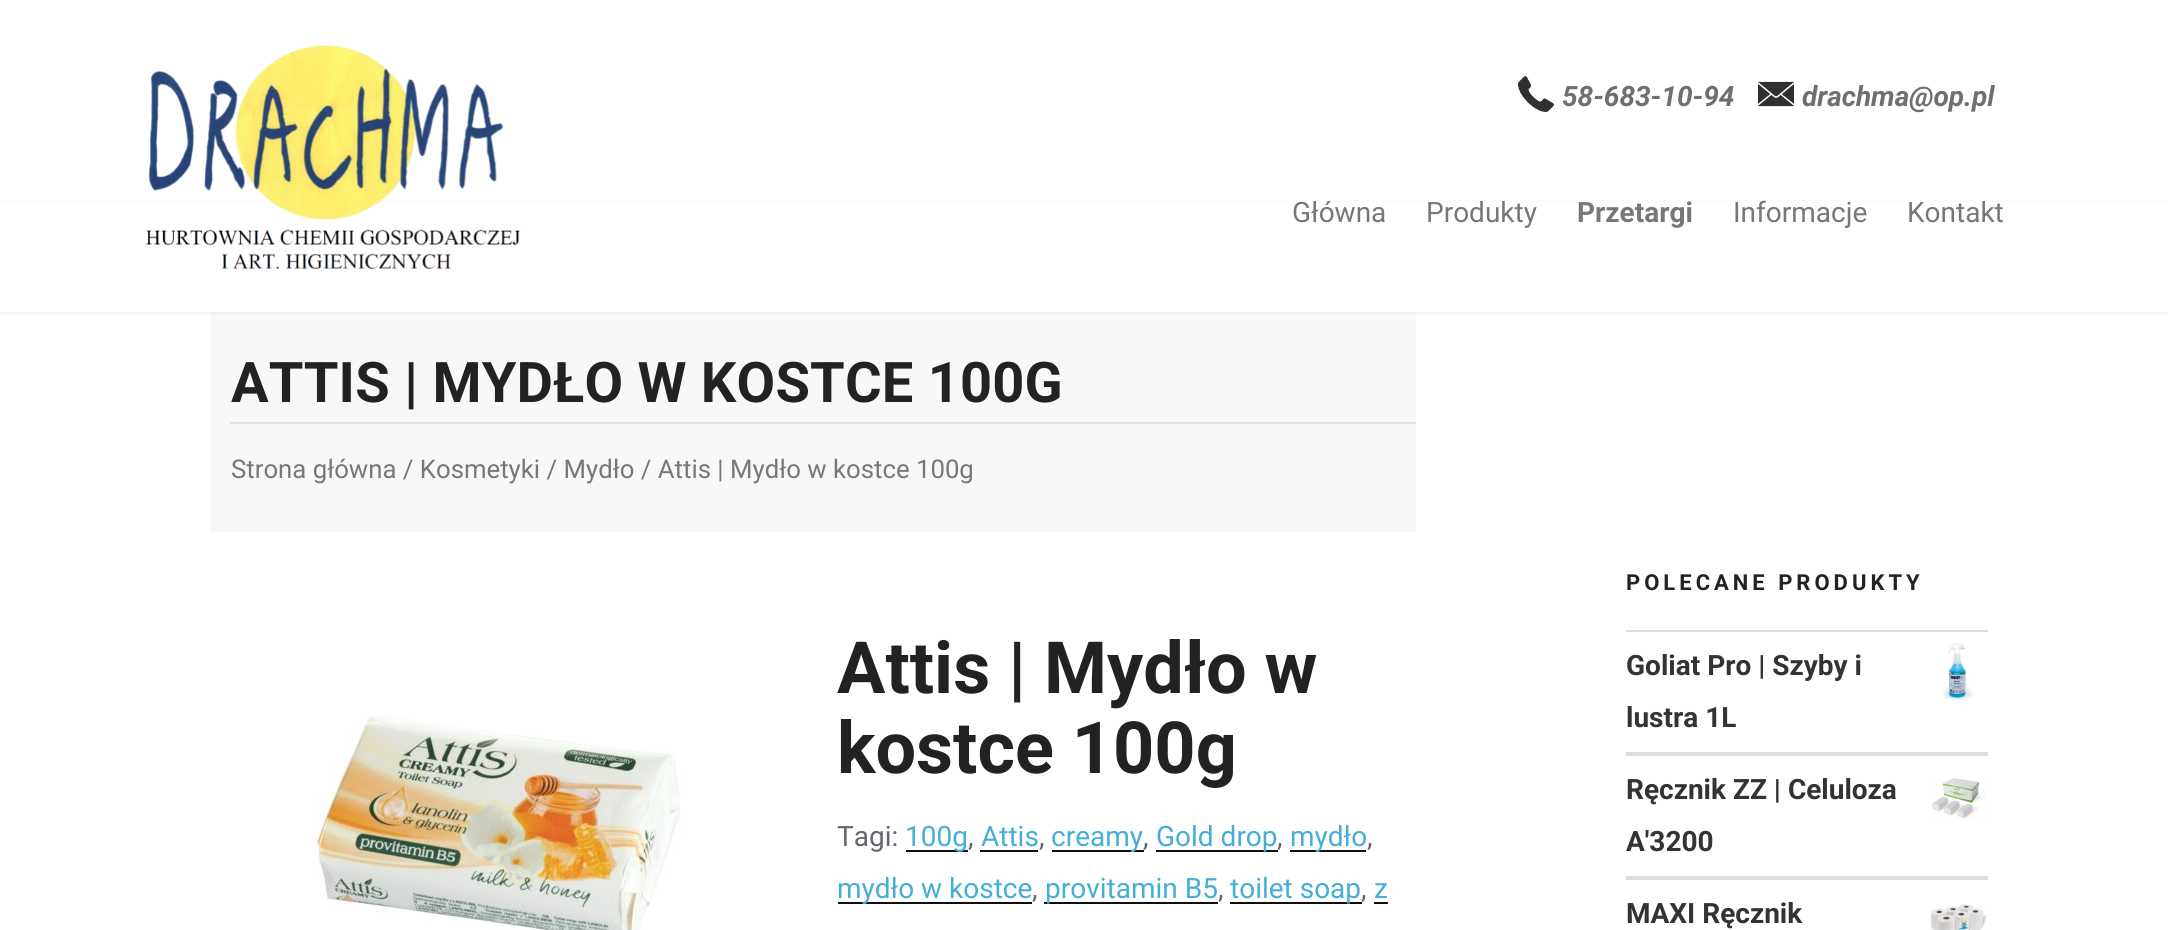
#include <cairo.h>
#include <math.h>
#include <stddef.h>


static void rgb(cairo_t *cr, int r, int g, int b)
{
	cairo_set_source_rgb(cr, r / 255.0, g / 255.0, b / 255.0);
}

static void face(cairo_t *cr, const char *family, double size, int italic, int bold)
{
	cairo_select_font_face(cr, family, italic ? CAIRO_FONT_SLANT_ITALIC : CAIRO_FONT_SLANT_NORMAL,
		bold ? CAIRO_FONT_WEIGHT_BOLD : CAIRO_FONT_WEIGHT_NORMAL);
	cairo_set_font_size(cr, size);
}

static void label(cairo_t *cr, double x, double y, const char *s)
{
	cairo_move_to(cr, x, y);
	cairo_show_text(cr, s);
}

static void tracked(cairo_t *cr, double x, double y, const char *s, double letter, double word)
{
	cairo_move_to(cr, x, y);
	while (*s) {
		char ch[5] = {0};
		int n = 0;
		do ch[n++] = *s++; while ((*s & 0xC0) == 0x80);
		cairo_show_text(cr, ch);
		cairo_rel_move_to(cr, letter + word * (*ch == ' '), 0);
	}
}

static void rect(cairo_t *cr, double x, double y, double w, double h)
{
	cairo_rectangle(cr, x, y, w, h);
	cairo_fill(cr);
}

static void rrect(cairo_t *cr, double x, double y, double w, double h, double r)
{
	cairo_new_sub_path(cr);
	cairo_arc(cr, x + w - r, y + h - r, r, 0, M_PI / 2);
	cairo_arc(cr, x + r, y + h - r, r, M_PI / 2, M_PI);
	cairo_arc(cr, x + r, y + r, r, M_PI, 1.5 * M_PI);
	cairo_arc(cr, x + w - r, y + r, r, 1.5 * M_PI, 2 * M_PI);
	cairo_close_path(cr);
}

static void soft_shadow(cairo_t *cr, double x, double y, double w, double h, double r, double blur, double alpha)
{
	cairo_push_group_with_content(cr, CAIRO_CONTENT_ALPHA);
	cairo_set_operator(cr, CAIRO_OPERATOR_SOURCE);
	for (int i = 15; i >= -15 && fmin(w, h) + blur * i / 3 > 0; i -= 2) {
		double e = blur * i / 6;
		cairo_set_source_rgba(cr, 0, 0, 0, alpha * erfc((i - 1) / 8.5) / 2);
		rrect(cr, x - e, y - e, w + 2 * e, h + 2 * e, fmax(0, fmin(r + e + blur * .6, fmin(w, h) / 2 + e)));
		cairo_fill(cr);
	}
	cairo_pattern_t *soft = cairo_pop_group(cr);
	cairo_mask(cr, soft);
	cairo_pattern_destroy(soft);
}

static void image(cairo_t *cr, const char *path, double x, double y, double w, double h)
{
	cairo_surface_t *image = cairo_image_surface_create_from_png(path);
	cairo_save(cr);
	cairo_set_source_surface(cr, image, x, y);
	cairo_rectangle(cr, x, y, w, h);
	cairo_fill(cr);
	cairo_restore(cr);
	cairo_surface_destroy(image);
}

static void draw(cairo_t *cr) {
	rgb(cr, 255, 255, 255);
	cairo_paint(cr);
	rgb(cr, 252, 252, 252);
	rect(cr, 0, 200, 2168, 2);
	rgb(cr, 248, 248, 248);
	rect(cr, 210, 312, 1206, 220);
	cairo_save(cr);
	cairo_rectangle(cr, 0, 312, 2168, 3);
	cairo_clip(cr);
	rgb(cr, 0, 0, 0);
	soft_shadow(cr, 0, 0, 2168, 312, 0, 3, 0.1);
	cairo_restore(cr);
	image(cr, "image0.png", 145, 44, 376, 225);
	image(cr, "image1.png", 1518, 76, 36, 36);
	face(cr, "Roboto", 28, 1, 1);
	rgb(cr, 111, 111, 111);
	label(cr, 1562, 106, "58-683-10-94");
	image(cr, "image2.png", 1758, 81, 36, 26);
	label(cr, 1802, 106, "drachma@op.pl");
	face(cr, "Roboto", 28, 0, 0);
	rgb(cr, 119, 119, 119);
	label(cr, 1292, 222, "Główna");
	label(cr, 1426, 222, "Produkty");
	face(cr, "Roboto", 28, 0, 1);
	label(cr, 1577, 222, "Przetargi");
	face(cr, "Roboto", 28, 0, 0);
	label(cr, 1733, 222, "Informacje");
	label(cr, 1907, 222, "Kontakt");
	rgb(cr, 226, 226, 226);
	rect(cr, 230, 422, 1186, 2);
	face(cr, "Roboto", 56, 0, 1);
	rgb(cr, 34, 34, 34);
	tracked(cr, 231, 402, "ATTIS | MYDŁO W KOSTCE 100G", 0.2, 0);
	face(cr, "Roboto", 25.75, 0, 0);
	rgb(cr, 119, 119, 119);
	label(cr, 231, 478, "Strona główna / Kosmetyki / Mydło / Attis | Mydło w kostce 100g");
	image(cr, "image3.png", 316, 716, 367, 214);
	face(cr, "Roboto", 72, 0, 1);
	rgb(cr, 34, 34, 34);
	label(cr, 837, 693, "Attis | Mydło w");
	label(cr, 837, 773, "kostce 100g");
	face(cr, "Roboto", 28, 0, 0);
	rgb(cr, 100, 104, 109);
	label(cr, 837, 846, "Tagi:");
	rgb(cr, 15, 15, 15);
	rect(cr, 906, 850, 62, 2);
	rgb(cr, 69, 174, 214);
	label(cr, 905, 846, "100g");
	rgb(cr, 100, 104, 109);
	label(cr, 968, 846, ",");
	rgb(cr, 69, 174, 214);
	label(cr, 981, 846, "Attis");
	rgb(cr, 100, 104, 109);
	label(cr, 1039, 846, ",");
	rgb(cr, 15, 15, 15);
	rect(cr, 980, 850, 58, 2);
	rect(cr, 1052, 850, 92, 2);
	rgb(cr, 69, 174, 214);
	label(cr, 1051, 846, "creamy");
	rgb(cr, 100, 104, 109);
	label(cr, 1143, 846, ",");
	rgb(cr, 15, 15, 15);
	rect(cr, 1156, 850, 122, 2);
	rgb(cr, 69, 174, 214);
	label(cr, 1156, 846, "Gold drop");
	rgb(cr, 100, 104, 109);
	label(cr, 1277, 846, ",");
	rgb(cr, 15, 15, 15);
	rect(cr, 1290, 850, 76, 2);
	rgb(cr, 69, 174, 214);
	label(cr, 1290, 846, "mydło");
	rgb(cr, 100, 104, 109);
	label(cr, 1367, 846, ",");
	rgb(cr, 15, 15, 15);
	rect(cr, 838, 902, 194, 2);
	rgb(cr, 69, 174, 214);
	label(cr, 837, 898, "mydło w kostce");
	rgb(cr, 100, 104, 109);
	label(cr, 1032, 898, ",");
	rgb(cr, 15, 15, 15);
	rect(cr, 1044, 902, 174, 2);
	rgb(cr, 69, 174, 214);
	label(cr, 1045, 898, "provitamin B5");
	rgb(cr, 100, 104, 109);
	label(cr, 1218, 898, ",");
	rgb(cr, 15, 15, 15);
	rect(cr, 1230, 902, 132, 2);
	rgb(cr, 69, 174, 214);
	label(cr, 1230, 898, "toilet soap");
	rgb(cr, 100, 104, 109);
	label(cr, 1361, 898, ",");
	rgb(cr, 15, 15, 15);
	rect(cr, 1374, 902, 14, 2);
	rgb(cr, 69, 174, 214);
	label(cr, 1374, 898, "z");
	face(cr, "Roboto", 22, 0, 1);
	rgb(cr, 34, 34, 34);
	tracked(cr, 1626, 590, "POLECANE PRODUKTY", 4, 0);
	rgb(cr, 221, 221, 221);
	rect(cr, 1626, 630, 362, 2);
	rect(cr, 1626, 752, 362, 4);
	face(cr, "Roboto", 28, 0, 1);
	rgb(cr, 51, 51, 51);
	label(cr, 1626, 675, "Goliat Pro | Szyby i");
	image(cr, "image4.png", 1942, 643, 32, 57);
	label(cr, 1626, 727, "lustra 1L");
	rgb(cr, 221, 221, 221);
	rect(cr, 1626, 876, 362, 4);
	rgb(cr, 51, 51, 51);
	label(cr, 1626, 799, "Ręcznik ZZ | Celuloza");
	image(cr, "image5.png", 1932, 778, 54, 41);
	label(cr, 1626, 851, "A'3200");
	label(cr, 1626, 923, "MAXI Ręcznik");
	image(cr, "image6.png", 1930, 904, 57, 26);
}

int main(void) {
	cairo_surface_t *surface = cairo_image_surface_create(CAIRO_FORMAT_RGB24, 2168, 930);
	cairo_t *cr = cairo_create(surface);
	cairo_font_options_t *options = cairo_font_options_create();
	cairo_font_options_set_hint_metrics(options, CAIRO_HINT_METRICS_OFF);
	cairo_font_options_set_hint_style(options, CAIRO_HINT_STYLE_NONE);
	cairo_set_font_options(cr, options);
	cairo_set_miter_limit(cr, 4);
	draw(cr);
	cairo_surface_write_to_png(surface, "render.png");
	cairo_font_options_destroy(options);
	cairo_destroy(cr);
	cairo_surface_destroy(surface);
	return 0;
}
